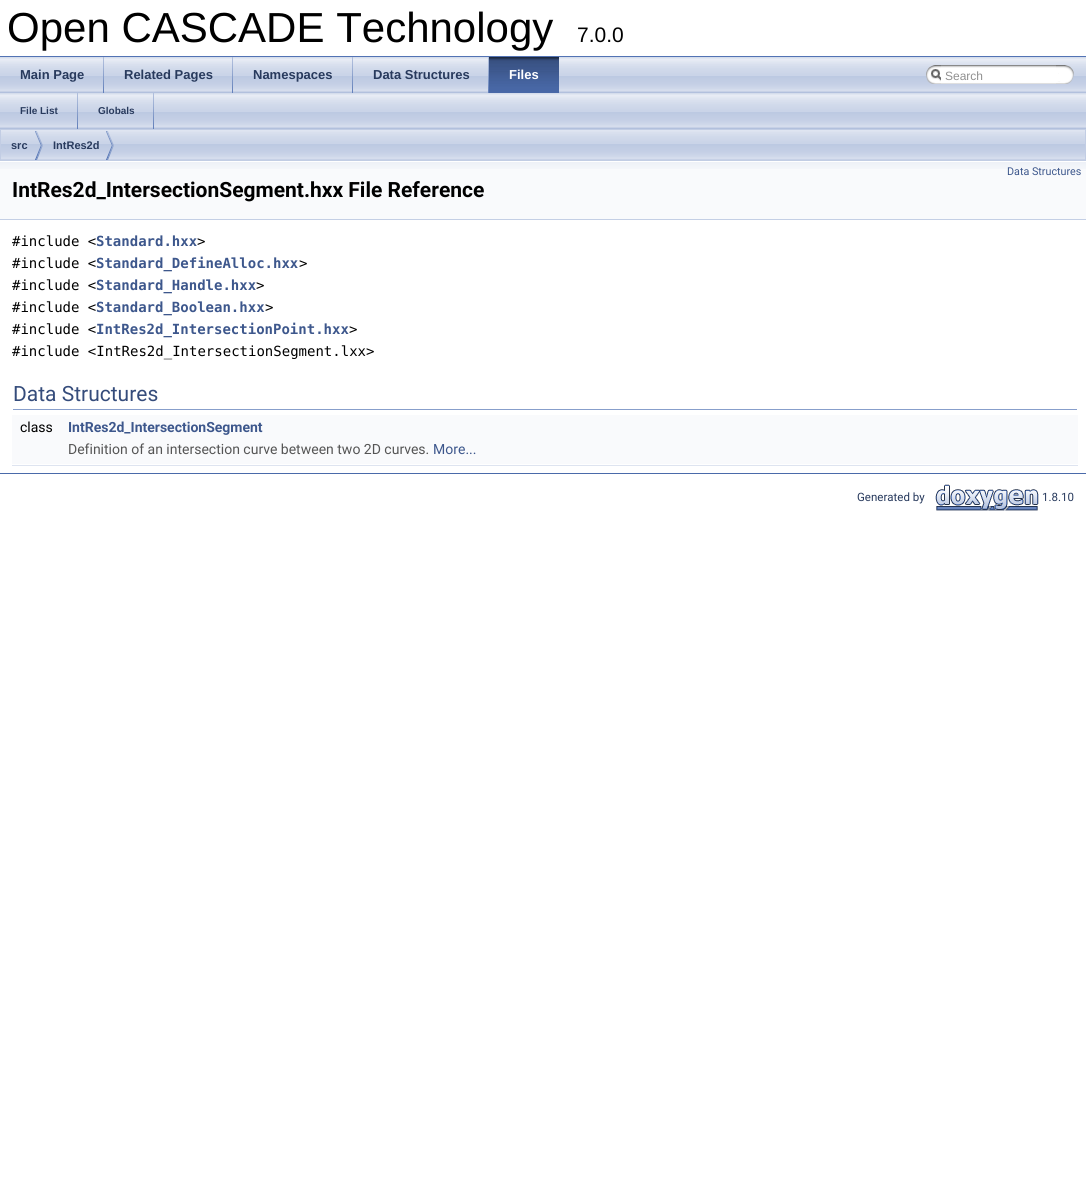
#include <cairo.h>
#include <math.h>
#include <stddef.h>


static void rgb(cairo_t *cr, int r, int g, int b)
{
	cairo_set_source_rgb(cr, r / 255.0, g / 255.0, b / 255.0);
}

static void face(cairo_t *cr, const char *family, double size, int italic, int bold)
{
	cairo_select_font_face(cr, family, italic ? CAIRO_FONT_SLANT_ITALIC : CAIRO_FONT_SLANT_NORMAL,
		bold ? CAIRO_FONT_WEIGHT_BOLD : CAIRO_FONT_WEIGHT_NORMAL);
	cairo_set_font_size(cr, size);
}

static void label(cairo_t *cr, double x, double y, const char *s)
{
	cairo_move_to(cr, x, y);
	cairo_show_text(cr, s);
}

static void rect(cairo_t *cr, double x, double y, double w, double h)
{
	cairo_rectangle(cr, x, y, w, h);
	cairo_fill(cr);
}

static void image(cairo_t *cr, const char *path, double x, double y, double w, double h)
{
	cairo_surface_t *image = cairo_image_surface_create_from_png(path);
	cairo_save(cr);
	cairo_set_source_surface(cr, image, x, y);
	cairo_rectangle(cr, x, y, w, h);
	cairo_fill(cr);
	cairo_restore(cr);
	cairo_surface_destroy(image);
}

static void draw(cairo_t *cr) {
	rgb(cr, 255, 255, 255);
	cairo_paint(cr);
	rgb(cr, 83, 115, 180);
	rect(cr, 0, 56, 1086, 1);
	face(cr, "Liberation Sans", 42, 0, 0);
	rgb(cr, 0, 0, 0);
	label(cr, 7, 42, "Open CASCADE Technology");
	face(cr, "Liberation Sans", 21, 0, 0);
	label(cr, 577, 42, "7.0.0");
	image(cr, "image0.png", 0, 57, 1086, 36);
	image(cr, "image1.png", 103, 57, 1, 36);
	face(cr, "Liberation Sans", 13, 0, 1);
	rgb(cr, 40, 58, 93);
	label(cr, 20, 79, "Main Page");
	image(cr, "image1.png", 232, 57, 1, 36);
	label(cr, 124, 79, "Related Pages");
	image(cr, "image1.png", 352, 57, 1, 36);
	label(cr, 253, 79, "Namespaces");
	image(cr, "image1.png", 488, 57, 1, 36);
	label(cr, 373, 79, "Data Structures");
	image(cr, "image2.png", 489, 57, 70, 36);
	rgb(cr, 255, 255, 255);
	label(cr, 509, 79, "Files");
	image(cr, "image3.png", 926, 65, 15, 19);
	image(cr, "image4.png", 931, 69, 10, 12);
	image(cr, "image5.png", 941, 65, 115, 19);
	face(cr, "Liberation Sans", 12, 0, 0);
	rgb(cr, 144, 144, 144);
	label(cr, 945, 80, "Search");
	image(cr, "image6.png", 1056, 65, 18, 19);
	image(cr, "image0.png", 0, 93, 1086, 36);
	image(cr, "image1.png", 77, 93, 1, 36);
	face(cr, "Liberation Sans", 10, 0, 1);
	rgb(cr, 40, 58, 93);
	label(cr, 20, 114, "File List");
	image(cr, "image1.png", 153, 93, 1, 36);
	label(cr, 98, 114, "Globals");
	image(cr, "image7.png", 1, 130, 1084, 30);
	cairo_rectangle(cr, 0.5, 129.5, 1085, 31);
	rgb(cr, 194, 205, 228);
	cairo_set_line_width(cr, 1);
	cairo_stroke(cr);
	image(cr, "image8.png", 35, 131, 8, 29);
	face(cr, "Liberation Sans", 11, 0, 1);
	rgb(cr, 40, 58, 93);
	label(cr, 11, 149, "src");
	image(cr, "image8.png", 106, 131, 8, 29);
	label(cr, 53, 149, "IntRes2d");
	rgb(cr, 249, 250, 252);
	rect(cr, 0, 169, 1086, 50);
	image(cr, "image9.png", 0, 161, 1086, 8);
	rgb(cr, 196, 207, 229);
	rect(cr, 0, 219, 1086, 1);
	face(cr, "Roboto", 10.75, 0, 0);
	rgb(cr, 61, 87, 140);
	label(cr, 1007, 175, "Data Structures");
	face(cr, "Roboto", 21, 0, 1);
	rgb(cr, 0, 0, 0);
	label(cr, 12, 197, "IntRes2d_IntersectionSegment.hxx File Reference");
	face(cr, "DejaVu Sans Mono", 14, 0, 0);
	label(cr, 12, 246, "#include <");
	face(cr, "DejaVu Sans Mono", 14, 0, 1);
	rgb(cr, 61, 87, 140);
	label(cr, 96, 246, "Standard.hxx");
	face(cr, "DejaVu Sans Mono", 14, 0, 0);
	rgb(cr, 0, 0, 0);
	label(cr, 197, 246, ">");
	label(cr, 12, 268, "#include <");
	face(cr, "DejaVu Sans Mono", 14, 0, 1);
	rgb(cr, 61, 87, 140);
	label(cr, 96, 268, "Standard_DefineAlloc.hxx");
	face(cr, "DejaVu Sans Mono", 14, 0, 0);
	rgb(cr, 0, 0, 0);
	label(cr, 299, 268, ">");
	label(cr, 12, 290, "#include <");
	face(cr, "DejaVu Sans Mono", 14, 0, 1);
	rgb(cr, 61, 87, 140);
	label(cr, 96, 290, "Standard_Handle.hxx");
	face(cr, "DejaVu Sans Mono", 14, 0, 0);
	rgb(cr, 0, 0, 0);
	label(cr, 256, 290, ">");
	label(cr, 12, 312, "#include <");
	face(cr, "DejaVu Sans Mono", 14, 0, 1);
	rgb(cr, 61, 87, 140);
	label(cr, 96, 312, "Standard_Boolean.hxx");
	face(cr, "DejaVu Sans Mono", 14, 0, 0);
	rgb(cr, 0, 0, 0);
	label(cr, 265, 312, ">");
	label(cr, 12, 334, "#include <");
	face(cr, "DejaVu Sans Mono", 14, 0, 1);
	rgb(cr, 61, 87, 140);
	label(cr, 96, 334, "IntRes2d_IntersectionPoint.hxx");
	face(cr, "DejaVu Sans Mono", 14, 0, 0);
	rgb(cr, 0, 0, 0);
	label(cr, 349, 334, ">");
	label(cr, 12, 356, "#include <IntRes2d_IntersectionSegment.lxx>");
	rgb(cr, 135, 158, 203);
	rect(cr, 13, 409, 1064, 1);
	face(cr, "Roboto", 21, 0, 0);
	rgb(cr, 53, 76, 123);
	label(cr, 13, 401, "Data Structures");
	rgb(cr, 249, 250, 252);
	rect(cr, 12, 415, 1066, 23);
	face(cr, "Roboto", 14, 0, 0);
	rgb(cr, 0, 0, 0);
	label(cr, 20, 432, "class");
	face(cr, "Roboto", 14, 0, 1);
	rgb(cr, 61, 87, 140);
	label(cr, 68, 432, "IntRes2d_IntersectionSegment");
	rgb(cr, 249, 250, 252);
	rect(cr, 12, 438, 1066, 26);
	face(cr, "Roboto", 14, 0, 0);
	rgb(cr, 85, 85, 85);
	label(cr, 68, 454, "Definition of an intersection curve between two 2D curves.");
	rgb(cr, 61, 87, 140);
	label(cr, 433, 454, "More...");
	rgb(cr, 222, 228, 240);
	rect(cr, 12, 465, 1066, 1);
	rgb(cr, 74, 106, 170);
	rect(cr, 0, 473, 1086, 1);
	face(cr, "Roboto", 11.5, 0, 0);
	rgb(cr, 40, 58, 93);
	label(cr, 857, 501, "Generated by");
	image(cr, "image10.png", 935, 484, 104, 27);
	label(cr, 1042, 501, "1.8.10");
}

int main(void) {
	cairo_surface_t *surface = cairo_image_surface_create(CAIRO_FORMAT_RGB24, 1086, 1198);
	cairo_t *cr = cairo_create(surface);
	cairo_font_options_t *options = cairo_font_options_create();
	cairo_font_options_set_hint_metrics(options, CAIRO_HINT_METRICS_OFF);
	cairo_font_options_set_hint_style(options, CAIRO_HINT_STYLE_NONE);
	cairo_set_font_options(cr, options);
	cairo_set_miter_limit(cr, 4);
	draw(cr);
	cairo_surface_write_to_png(surface, "render.png");
	cairo_font_options_destroy(options);
	cairo_destroy(cr);
	cairo_surface_destroy(surface);
	return 0;
}
